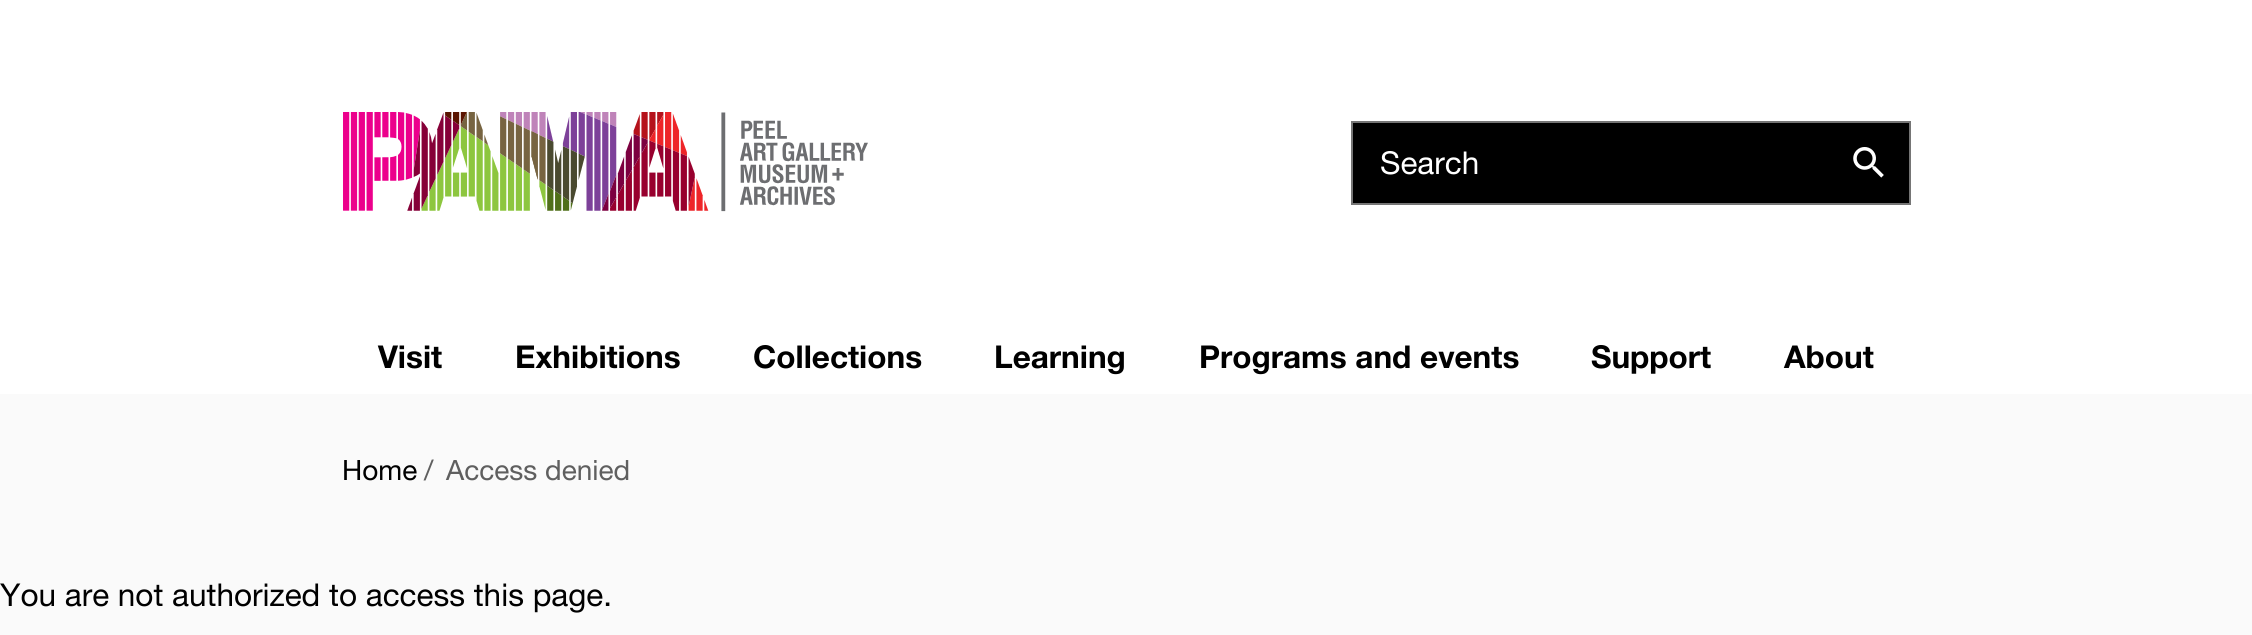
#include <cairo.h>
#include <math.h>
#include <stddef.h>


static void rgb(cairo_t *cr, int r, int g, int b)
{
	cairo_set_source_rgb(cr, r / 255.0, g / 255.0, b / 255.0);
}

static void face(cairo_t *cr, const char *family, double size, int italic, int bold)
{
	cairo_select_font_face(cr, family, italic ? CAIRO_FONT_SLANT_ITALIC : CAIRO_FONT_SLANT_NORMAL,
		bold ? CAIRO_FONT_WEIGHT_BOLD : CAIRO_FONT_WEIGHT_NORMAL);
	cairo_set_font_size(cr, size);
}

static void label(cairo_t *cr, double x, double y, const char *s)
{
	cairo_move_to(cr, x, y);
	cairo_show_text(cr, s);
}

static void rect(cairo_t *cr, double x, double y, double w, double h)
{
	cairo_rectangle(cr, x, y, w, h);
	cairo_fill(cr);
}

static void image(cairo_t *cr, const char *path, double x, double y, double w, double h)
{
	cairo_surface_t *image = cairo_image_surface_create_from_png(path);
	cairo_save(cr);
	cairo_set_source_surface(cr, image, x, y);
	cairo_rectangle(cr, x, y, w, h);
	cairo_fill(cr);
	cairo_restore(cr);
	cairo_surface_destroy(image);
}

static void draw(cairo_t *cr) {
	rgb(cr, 250, 250, 250);
	cairo_paint(cr);
	rgb(cr, 255, 255, 255);
	rect(cr, 0, 0, 2252, 394);
	image(cr, "image0.png", 343, 112, 525, 100);
	rgb(cr, 0, 0, 0);
	cairo_rectangle(cr, 1352, 122, 558, 82);
	cairo_fill_preserve(cr);
	rgb(cr, 117, 117, 117);
	cairo_stroke(cr);
	face(cr, "Helvetica Neue", 31.5, 0, 0);
	rgb(cr, 255, 255, 255);
	label(cr, 1380, 174, "Search");
	image(cr, "image1.png", 1853, 147, 31, 31);
	face(cr, "Helvetica Neue", 31.5, 0, 1);
	rgb(cr, 0, 0, 0);
	label(cr, 378, 368, "Visit");
	label(cr, 515, 368, "Exhibitions");
	label(cr, 753, 368, "Collections");
	label(cr, 994, 368, "Learning");
	label(cr, 1199, 368, "Programs and events");
	label(cr, 1591, 368, "Support");
	label(cr, 1784, 368, "About");
	face(cr, "Helvetica Neue", 28, 0, 0);
	label(cr, 342, 480, "Home");
	rgb(cr, 95, 95, 95);
	label(cr, 424, 480, "/");
	label(cr, 446, 480, "Access denied");
	face(cr, "Helvetica Neue", 31.5, 0, 0);
	rgb(cr, 0, 0, 0);
	label(cr, 0, 606, "You are not authorized to access this page.");
}

int main(void) {
	cairo_surface_t *surface = cairo_image_surface_create(CAIRO_FORMAT_RGB24, 2252, 635);
	cairo_t *cr = cairo_create(surface);
	cairo_font_options_t *options = cairo_font_options_create();
	cairo_font_options_set_hint_metrics(options, CAIRO_HINT_METRICS_OFF);
	cairo_font_options_set_hint_style(options, CAIRO_HINT_STYLE_NONE);
	cairo_set_font_options(cr, options);
	cairo_set_miter_limit(cr, 4);
	draw(cr);
	cairo_surface_write_to_png(surface, "render.png");
	cairo_font_options_destroy(options);
	cairo_destroy(cr);
	cairo_surface_destroy(surface);
	return 0;
}
